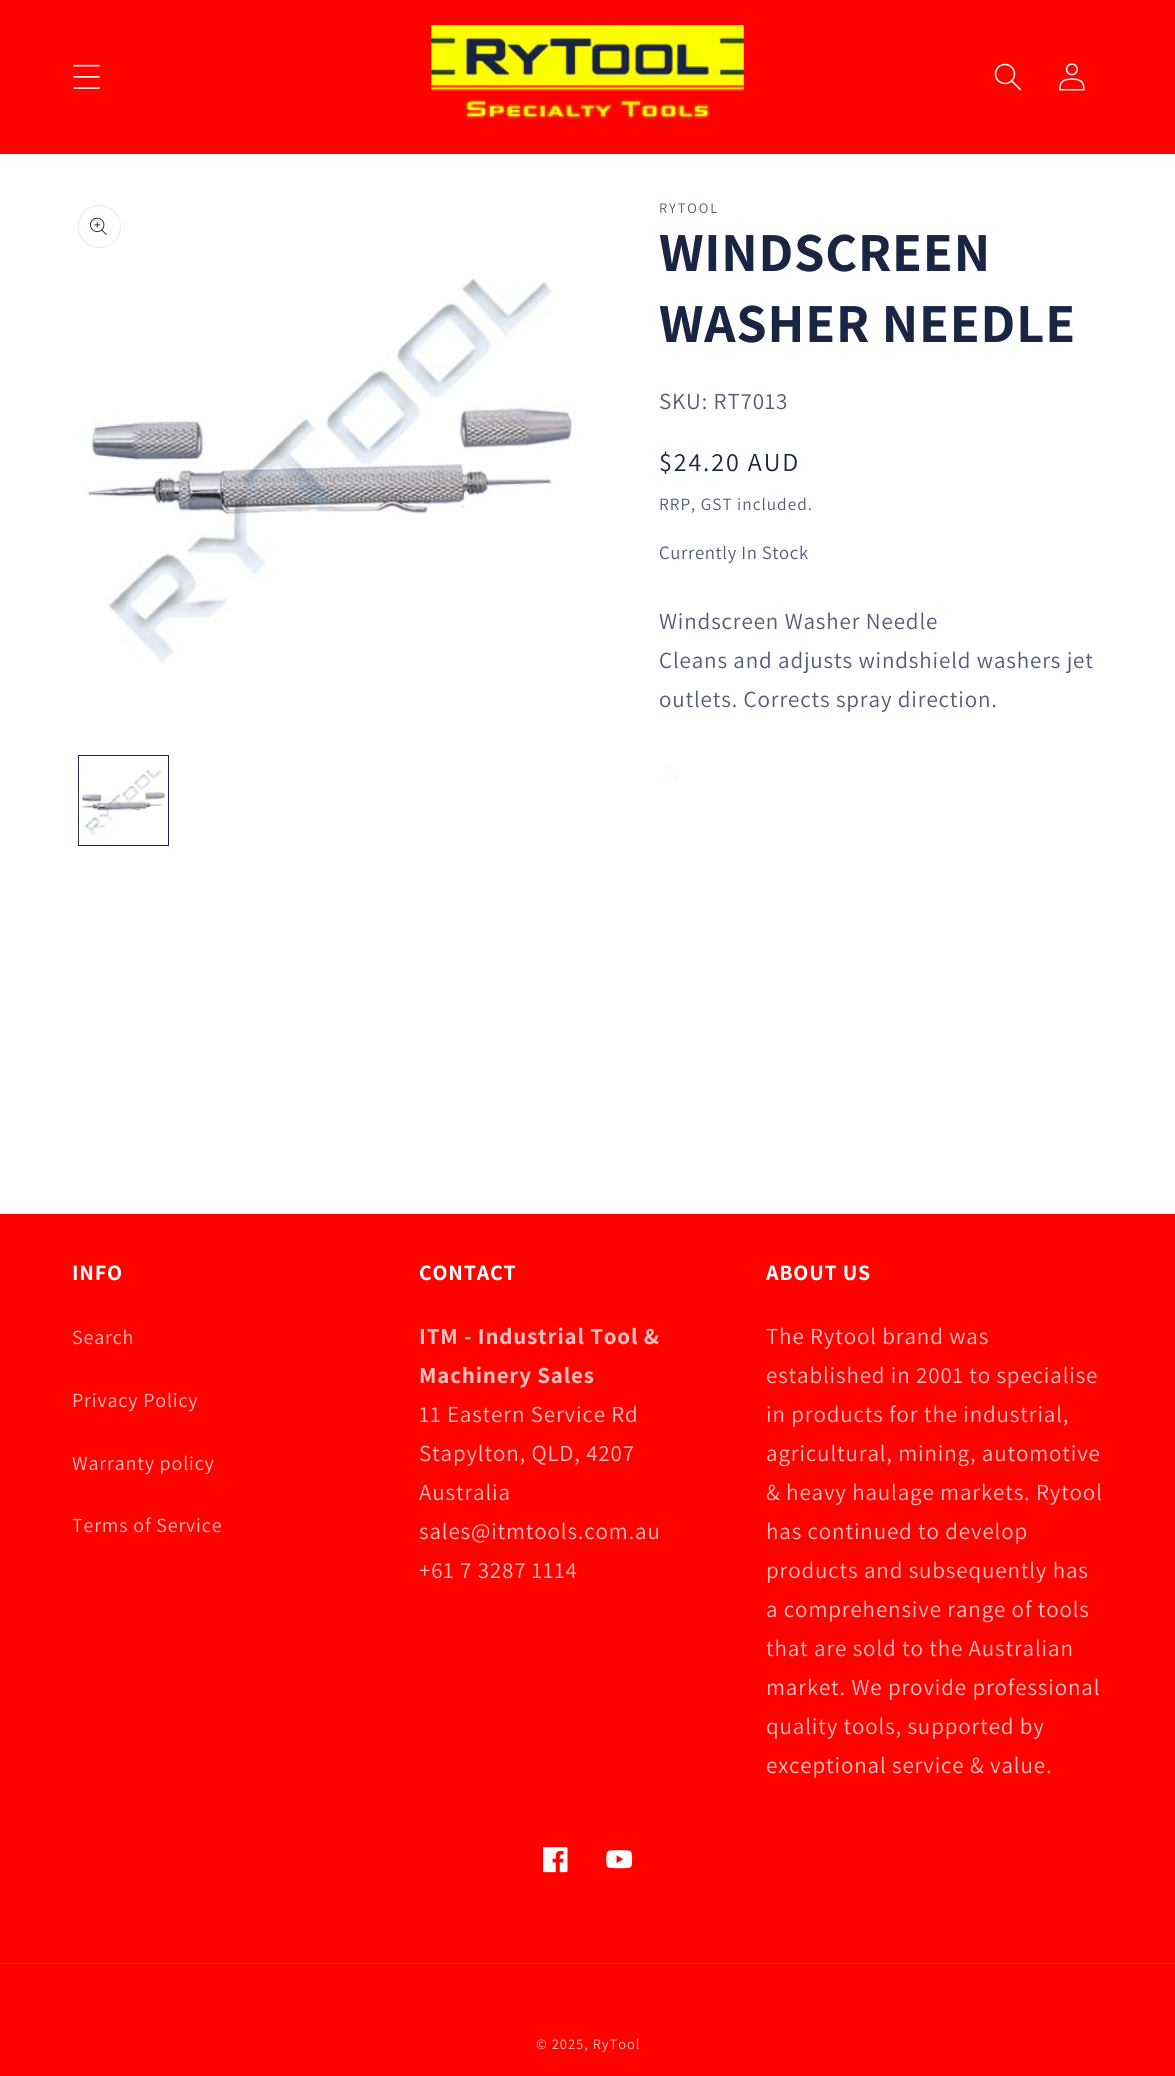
#include <cairo.h>
#include <math.h>
#include <stddef.h>


static void rgb(cairo_t *cr, int r, int g, int b)
{
	cairo_set_source_rgb(cr, r / 255.0, g / 255.0, b / 255.0);
}

static void face(cairo_t *cr, const char *family, double size, int italic, int bold)
{
	cairo_select_font_face(cr, family, italic ? CAIRO_FONT_SLANT_ITALIC : CAIRO_FONT_SLANT_NORMAL,
		bold ? CAIRO_FONT_WEIGHT_BOLD : CAIRO_FONT_WEIGHT_NORMAL);
	cairo_set_font_size(cr, size);
}

static void tracked(cairo_t *cr, double x, double y, const char *s, double letter, double word)
{
	cairo_move_to(cr, x, y);
	while (*s) {
		char ch[5] = {0};
		int n = 0;
		do ch[n++] = *s++; while ((*s & 0xC0) == 0x80);
		cairo_show_text(cr, ch);
		cairo_rel_move_to(cr, letter + word * (*ch == ' '), 0);
	}
}

static void rect(cairo_t *cr, double x, double y, double w, double h)
{
	cairo_rectangle(cr, x, y, w, h);
	cairo_fill(cr);
}

static void image(cairo_t *cr, const char *path, double x, double y, double w, double h)
{
	cairo_surface_t *image = cairo_image_surface_create_from_png(path);
	cairo_save(cr);
	cairo_set_source_surface(cr, image, x, y);
	cairo_rectangle(cr, x, y, w, h);
	cairo_fill(cr);
	cairo_restore(cr);
	cairo_surface_destroy(image);
}

static void draw(cairo_t *cr) {
	rgb(cr, 255, 255, 255);
	cairo_paint(cr);
	rgb(cr, 254, 2, 0);
	rect(cr, 0, 0, 1175, 154);
	image(cr, "image0.png", 73, 64, 27, 25);
	image(cr, "image1.png", 431, 25, 313, 100);
	image(cr, "image2.png", 994, 63, 28, 28);
	image(cr, "image3.png", 1059, 63, 26, 28);
	cairo_arc(cr, 99.5, 226.5, 21, 0, 2 * M_PI);
	rgb(cr, 232, 233, 236);
	cairo_set_line_width(cr, 1);
	cairo_stroke(cr);
	image(cr, "image4.png", 90, 217, 17, 18);
	image(cr, "image5.png", 83, 278, 495, 386);
	cairo_rectangle(cr, 78.5, 755.5, 90, 90);
	rgb(cr, 25, 37, 67);
	cairo_stroke(cr);
	image(cr, "image6.png", 78, 756, 88, 89);
	face(cr, "Assistant", 14.5, 0, 0);
	rgb(cr, 83, 92, 114);
	tracked(cr, 659, 213, "RYTOOL", 1.9, 0);
	face(cr, "Assistant", 55, 0, 1);
	rgb(cr, 25, 37, 67);
	tracked(cr, 659, 271, "WINDSCREEN", 0.8, 0);
	tracked(cr, 659, 342, "WASHER NEEDLE", 0.8, 0);
	face(cr, "Assistant", 23, 0, 0);
	rgb(cr, 83, 92, 114);
	tracked(cr, 659, 409, "SKU: RT7013", 0.85, 0);
	face(cr, "Assistant", 26, 0, 0);
	rgb(cr, 25, 37, 67);
	tracked(cr, 659, 471, "$24.20 AUD", 1.9, 0);
	face(cr, "Assistant", 17.25, 0, 0);
	rgb(cr, 83, 92, 114);
	tracked(cr, 659, 510, "RRP, GST included.", 1, 0);
	face(cr, "Assistant", 18.75, 0, 0);
	tracked(cr, 659, 559, "Currently In Stock", 0.6, 0);
	face(cr, "Assistant", 23, 0, 0);
	tracked(cr, 659, 629, "Windscreen Washer Needle", 0.85, 0);
	tracked(cr, 659, 668, "Cleans and adjusts windshield washers jet", 0.85, 0);
	tracked(cr, 659, 707, "outlets. Corrects spray direction.", 0.85, 0);
	image(cr, "image7.png", 662, 766, 15, 14);
	rgb(cr, 254, 2, 0);
	rect(cr, 0, 1214, 1175, 862);
	face(cr, "Assistant", 22, 0, 1);
	rgb(cr, 255, 255, 255);
	tracked(cr, 72, 1280, "INFO", 0.8, 0);
	face(cr, "Assistant", 20, 0, 0);
	rgb(cr, 255, 192, 191);
	tracked(cr, 72, 1344, "Search", 0.85, 0);
	tracked(cr, 72, 1407, "Privacy Policy", 0.85, 0);
	tracked(cr, 72, 1470, "Warranty policy", 0.85, 0);
	tracked(cr, 72, 1532, "Terms of Service", 0.85, 0);
	face(cr, "Assistant", 22, 0, 1);
	rgb(cr, 255, 255, 255);
	tracked(cr, 419, 1280, "CONTACT", 0.8, 0);
	face(cr, "Assistant", 23, 0, 1);
	rgb(cr, 255, 192, 191);
	tracked(cr, 419, 1344, "ITM - Industrial Tool &", 0.85, 0);
	tracked(cr, 419, 1383, "Machinery Sales", 0.85, 0);
	face(cr, "Assistant", 23, 0, 0);
	tracked(cr, 419, 1422, "11 Eastern Service Rd", 0.85, 0);
	tracked(cr, 419, 1461, "Stapylton, QLD, 4207", 0.85, 0);
	tracked(cr, 419, 1500, "Australia", 0.85, 0);
	tracked(cr, 419, 1539, "sales@itmtools.com.au", 0.85, 0);
	tracked(cr, 419, 1578, "+61 7 3287 1114", 0.85, 0);
	face(cr, "Assistant", 22, 0, 1);
	rgb(cr, 255, 255, 255);
	tracked(cr, 766, 1280, "ABOUT US", 0.8, 0);
	face(cr, "Assistant", 23, 0, 0);
	rgb(cr, 255, 192, 191);
	tracked(cr, 766, 1344, "The Rytool brand was", 0.85, 0);
	tracked(cr, 766, 1383, "established in 2001 to specialise", 0.85, 0);
	tracked(cr, 766, 1422, "in products for the industrial,", 0.85, 0);
	tracked(cr, 766, 1461, "agricultural, mining, automotive", 0.85, 0);
	tracked(cr, 766, 1500, "& heavy haulage markets. Rytool", 0.85, 0);
	tracked(cr, 766, 1539, "has continued to develop", 0.85, 0);
	tracked(cr, 766, 1578, "products and subsequently has", 0.85, 0);
	tracked(cr, 766, 1617, "a comprehensive range of tools", 0.85, 0);
	tracked(cr, 766, 1656, "that are sold to the Australian", 0.85, 0);
	tracked(cr, 766, 1695, "market. We provide professional", 0.85, 0);
	tracked(cr, 766, 1734, "quality tools, supported by", 0.85, 0);
	tracked(cr, 766, 1773, "exceptional service & value.", 0.85, 0);
	image(cr, "image8.png", 543, 1847, 25, 26);
	image(cr, "image9.png", 606, 1850, 27, 19);
	rgb(cr, 254, 22, 20);
	rect(cr, 0, 1963, 1175, 1);
	face(cr, "Assistant", 14.5, 0, 0);
	rgb(cr, 255, 192, 191);
	tracked(cr, 536, 2049, "© 2025, RyTool", 1, 0);
}

int main(void) {
	cairo_surface_t *surface = cairo_image_surface_create(CAIRO_FORMAT_RGB24, 1175, 2076);
	cairo_t *cr = cairo_create(surface);
	cairo_font_options_t *options = cairo_font_options_create();
	cairo_font_options_set_hint_metrics(options, CAIRO_HINT_METRICS_OFF);
	cairo_font_options_set_hint_style(options, CAIRO_HINT_STYLE_NONE);
	cairo_set_font_options(cr, options);
	cairo_set_miter_limit(cr, 4);
	draw(cr);
	cairo_surface_write_to_png(surface, "render.png");
	cairo_font_options_destroy(options);
	cairo_destroy(cr);
	cairo_surface_destroy(surface);
	return 0;
}
